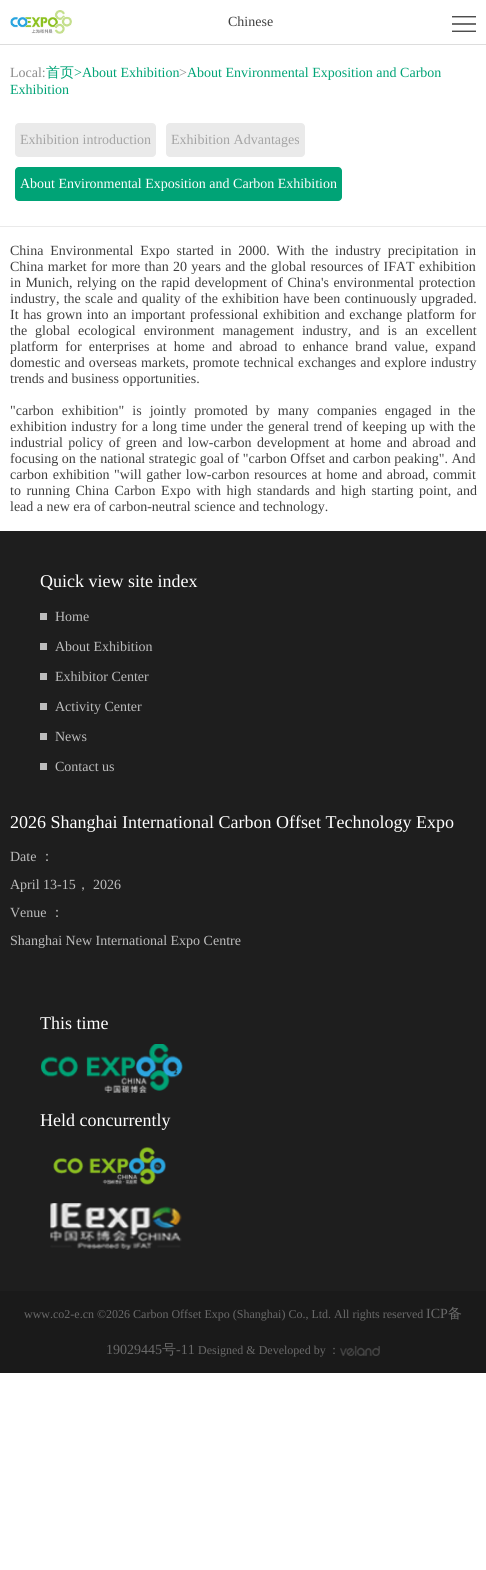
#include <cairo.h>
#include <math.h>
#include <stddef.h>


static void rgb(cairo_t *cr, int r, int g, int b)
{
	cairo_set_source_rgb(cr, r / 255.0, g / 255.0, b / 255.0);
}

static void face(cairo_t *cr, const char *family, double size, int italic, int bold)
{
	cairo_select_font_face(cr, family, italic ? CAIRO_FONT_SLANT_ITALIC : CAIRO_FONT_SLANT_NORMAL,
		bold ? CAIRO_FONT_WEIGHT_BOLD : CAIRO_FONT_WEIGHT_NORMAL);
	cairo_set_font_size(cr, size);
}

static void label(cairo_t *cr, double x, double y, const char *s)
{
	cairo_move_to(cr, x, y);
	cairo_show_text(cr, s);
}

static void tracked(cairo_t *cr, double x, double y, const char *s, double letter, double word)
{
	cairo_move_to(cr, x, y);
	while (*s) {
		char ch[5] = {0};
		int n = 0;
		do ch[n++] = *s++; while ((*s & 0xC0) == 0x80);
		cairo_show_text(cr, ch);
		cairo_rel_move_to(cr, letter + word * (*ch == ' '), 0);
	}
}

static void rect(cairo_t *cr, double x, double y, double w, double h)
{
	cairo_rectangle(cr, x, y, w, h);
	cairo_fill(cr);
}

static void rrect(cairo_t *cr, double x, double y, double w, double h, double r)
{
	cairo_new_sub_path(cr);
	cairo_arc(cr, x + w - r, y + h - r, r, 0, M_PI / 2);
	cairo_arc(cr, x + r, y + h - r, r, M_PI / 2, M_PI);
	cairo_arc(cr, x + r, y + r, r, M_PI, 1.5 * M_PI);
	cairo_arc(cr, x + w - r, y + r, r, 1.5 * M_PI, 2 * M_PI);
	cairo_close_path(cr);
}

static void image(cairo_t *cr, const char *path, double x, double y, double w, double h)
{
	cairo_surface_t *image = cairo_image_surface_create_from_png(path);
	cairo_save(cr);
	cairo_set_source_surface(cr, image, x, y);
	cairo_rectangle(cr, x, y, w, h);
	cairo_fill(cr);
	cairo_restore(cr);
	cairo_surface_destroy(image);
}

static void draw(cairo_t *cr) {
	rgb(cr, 255, 255, 255);
	cairo_paint(cr);
	rgb(cr, 221, 221, 221);
	rect(cr, 0, 44, 486, 1);
	image(cr, "image0.png", 10, 10, 62, 24);
	face(cr, "Liberation Serif", 14, 0, 0);
	rgb(cr, 64, 64, 64);
	label(cr, 228, 26, "Chinese");
	image(cr, "image1.png", 452, 16, 24, 16);
	rgb(cr, 234, 234, 234);
	rect(cr, 0, 226, 486, 1);
	rgb(cr, 139, 139, 139);
	label(cr, 10, 77, "Local:");
	face(cr, "WenQuanYi Zen Hei Medium", 14, 0, 0);
	rgb(cr, 0, 163, 118);
	label(cr, 46, 77, "首页");
	face(cr, "Liberation Serif", 14, 0, 0);
	label(cr, 74, 77, ">About Exhibition");
	rgb(cr, 139, 139, 139);
	label(cr, 179, 77, ">");
	rgb(cr, 0, 163, 118);
	label(cr, 187, 77, "About Environmental Exposition and Carbon");
	label(cr, 10, 94, "Exhibition");
	rgb(cr, 234, 234, 234);
	rrect(cr, 15, 123, 141, 34, 4);
	cairo_fill(cr);
	rgb(cr, 165, 165, 165);
	label(cr, 20, 144, "Exhibition introduction");
	rgb(cr, 234, 234, 234);
	rrect(cr, 166, 123, 139, 34, 4);
	cairo_fill(cr);
	rgb(cr, 165, 165, 165);
	label(cr, 171, 144, "Exhibition Advantages");
	rgb(cr, 0, 163, 118);
	rrect(cr, 15, 167, 327, 34, 4);
	cairo_fill(cr);
	rgb(cr, 255, 255, 255);
	label(cr, 20, 188, "About Environmental Exposition and Carbon Exhibition");
	rgb(cr, 64, 64, 64);
	tracked(cr, 10, 255, "China Environmental Expo started in 2000. With the industry precipitation in", 0, 3.25);
	tracked(cr, 10, 271, "China market for more than 20 years and the global resources of IFAT exhibition", 0, 0.8);
	tracked(cr, 10, 287, "in Munich, relying on the rapid development of China's environmental protection", 0, 1);
	tracked(cr, 10, 303, "industry, the scale and quality of the exhibition have been continuously upgraded.", 0, 0.75);
	tracked(cr, 10, 319, "It has grown into an important professional exhibition and exchange platform for", 0, 1.1);
	tracked(cr, 10, 335, "the global ecological environment management industry, and is an excellent", 0, 4.5);
	tracked(cr, 10, 351, "platform for enterprises at home and abroad to enhance brand value, expand", 0, 3.6);
	tracked(cr, 10, 367, "domestic and overseas markets, promote technical exchanges and explore industry", 0, 0.5);
	label(cr, 10, 383, "trends and business opportunities.");
	tracked(cr, 10, 415, "\"carbon exhibition\" is jointly promoted by many companies engaged in the", 0, 4.5);
	tracked(cr, 10, 431, "exhibition industry for a long time under the general trend of keeping up with the", 0, 0.75);
	tracked(cr, 10, 447, "industrial policy of green and low-carbon development at home and abroad and", 0, 1.9);
	tracked(cr, 10, 463, "focusing on the national strategic goal of \"carbon Offset and carbon peaking\". And", 0, 0.1);
	tracked(cr, 10, 479, "carbon exhibition \"will gather low-carbon resources at home and abroad, commit", 0, 1.1);
	tracked(cr, 10, 495, "to running China Carbon Expo with high standards and high starting point, and", 0, 2);
	label(cr, 10, 511, "lead a new era of carbon-neutral science and technology.");
	rgb(cr, 30, 30, 30);
	rect(cr, 0, 531, 486, 760);
	face(cr, "Liberation Serif", 18, 0, 0);
	rgb(cr, 255, 255, 255);
	label(cr, 40, 587, "Quick view site index");
	face(cr, "Liberation Serif", 14, 0, 0);
	rgb(cr, 188, 188, 188);
	label(cr, 55, 621, "Home");
	rect(cr, 40, 613, 7, 7);
	label(cr, 55, 651, "About Exhibition");
	rect(cr, 40, 643, 7, 7);
	label(cr, 55, 681, "Exhibitor Center");
	rect(cr, 40, 673, 7, 7);
	label(cr, 55, 711, "Activity Center");
	rect(cr, 40, 703, 7, 7);
	label(cr, 55, 741, "News");
	rect(cr, 40, 733, 7, 7);
	label(cr, 55, 771, "Contact us");
	rect(cr, 40, 763, 7, 7);
	face(cr, "Liberation Serif", 18, 0, 0);
	rgb(cr, 255, 255, 255);
	label(cr, 10, 828, "2026 Shanghai International Carbon Offset Technology Expo");
	face(cr, "Liberation Serif", 14, 0, 0);
	rgb(cr, 188, 188, 188);
	label(cr, 10, 861, "Date");
	face(cr, "WenQuanYi Zen Hei Medium", 14, 0, 0);
	label(cr, 40, 861, "：");
	face(cr, "Liberation Serif", 14, 0, 0);
	label(cr, 10, 889, "April 13-15");
	face(cr, "WenQuanYi Zen Hei Medium", 14, 0, 0);
	label(cr, 76, 889, "，");
	face(cr, "Liberation Serif", 14, 0, 0);
	label(cr, 93, 889, "2026");
	label(cr, 10, 917, "Venue");
	face(cr, "WenQuanYi Zen Hei Medium", 14, 0, 0);
	label(cr, 50, 917, "：");
	face(cr, "Liberation Serif", 14, 0, 0);
	label(cr, 10, 945, "Shanghai New International Expo Centre");
	face(cr, "Liberation Serif", 18, 0, 0);
	rgb(cr, 255, 255, 255);
	label(cr, 40, 1029, "This time");
	image(cr, "image2.png", 41, 1044, 142, 49);
	label(cr, 40, 1126, "Held concurrently");
	image(cr, "image3.png", 53, 1147, 113, 38);
	image(cr, "image4.png", 50, 1203, 132, 47);
	rgb(cr, 26, 26, 26);
	rect(cr, 0, 1291, 486, 82);
	face(cr, "Liberation Serif", 12, 0, 0);
	rgb(cr, 105, 105, 105);
	label(cr, 24, 1318, "www.co2-e.cn ©2026 Carbon Offset Expo (Shanghai) Co., Ltd. All rights reserved");
	face(cr, "Liberation Serif", 14, 0, 0);
	label(cr, 426, 1318, "ICP");
	face(cr, "WenQuanYi Zen Hei Medium", 14, 0, 0);
	label(cr, 448, 1318, "备");
	face(cr, "Liberation Serif", 14, 0, 0);
	label(cr, 106, 1354, "19029445");
	face(cr, "WenQuanYi Zen Hei Medium", 14, 0, 0);
	label(cr, 162, 1354, "号");
	face(cr, "Liberation Serif", 14, 0, 0);
	label(cr, 176, 1354, "-11");
	face(cr, "Liberation Serif", 12, 0, 0);
	label(cr, 198, 1354, "Designed & Developed by");
	face(cr, "WenQuanYi Zen Hei Medium", 12, 0, 0);
	label(cr, 328, 1354, "：");
	image(cr, "image5.png", 340, 1346, 40, 10);
}

int main(void) {
	cairo_surface_t *surface = cairo_image_surface_create(CAIRO_FORMAT_RGB24, 486, 1570);
	cairo_t *cr = cairo_create(surface);
	cairo_font_options_t *options = cairo_font_options_create();
	cairo_font_options_set_hint_metrics(options, CAIRO_HINT_METRICS_OFF);
	cairo_font_options_set_hint_style(options, CAIRO_HINT_STYLE_NONE);
	cairo_set_font_options(cr, options);
	cairo_set_miter_limit(cr, 4);
	draw(cr);
	cairo_surface_write_to_png(surface, "render.png");
	cairo_font_options_destroy(options);
	cairo_destroy(cr);
	cairo_surface_destroy(surface);
	return 0;
}
